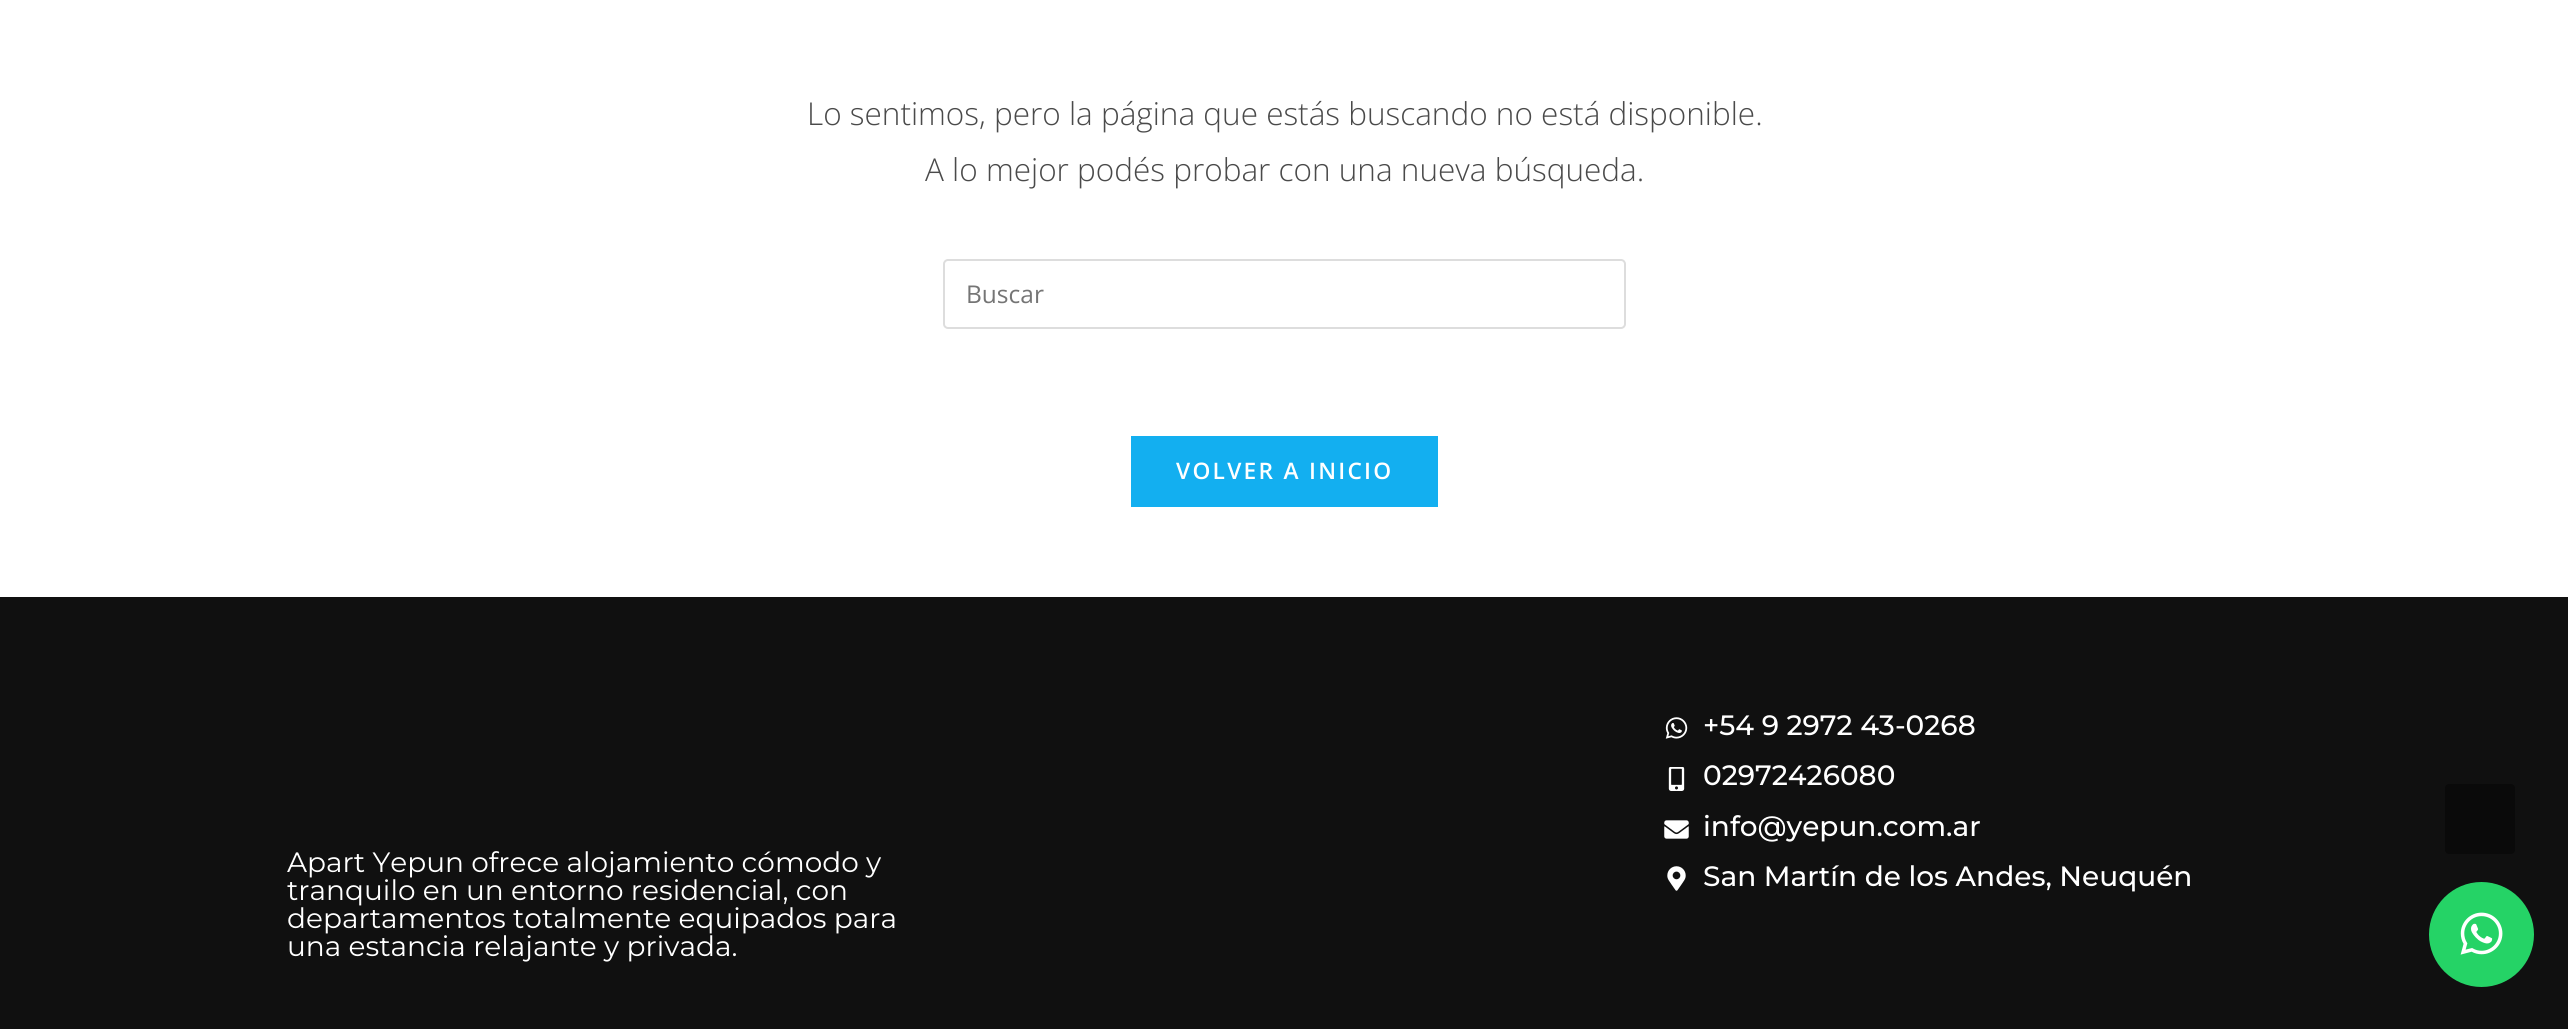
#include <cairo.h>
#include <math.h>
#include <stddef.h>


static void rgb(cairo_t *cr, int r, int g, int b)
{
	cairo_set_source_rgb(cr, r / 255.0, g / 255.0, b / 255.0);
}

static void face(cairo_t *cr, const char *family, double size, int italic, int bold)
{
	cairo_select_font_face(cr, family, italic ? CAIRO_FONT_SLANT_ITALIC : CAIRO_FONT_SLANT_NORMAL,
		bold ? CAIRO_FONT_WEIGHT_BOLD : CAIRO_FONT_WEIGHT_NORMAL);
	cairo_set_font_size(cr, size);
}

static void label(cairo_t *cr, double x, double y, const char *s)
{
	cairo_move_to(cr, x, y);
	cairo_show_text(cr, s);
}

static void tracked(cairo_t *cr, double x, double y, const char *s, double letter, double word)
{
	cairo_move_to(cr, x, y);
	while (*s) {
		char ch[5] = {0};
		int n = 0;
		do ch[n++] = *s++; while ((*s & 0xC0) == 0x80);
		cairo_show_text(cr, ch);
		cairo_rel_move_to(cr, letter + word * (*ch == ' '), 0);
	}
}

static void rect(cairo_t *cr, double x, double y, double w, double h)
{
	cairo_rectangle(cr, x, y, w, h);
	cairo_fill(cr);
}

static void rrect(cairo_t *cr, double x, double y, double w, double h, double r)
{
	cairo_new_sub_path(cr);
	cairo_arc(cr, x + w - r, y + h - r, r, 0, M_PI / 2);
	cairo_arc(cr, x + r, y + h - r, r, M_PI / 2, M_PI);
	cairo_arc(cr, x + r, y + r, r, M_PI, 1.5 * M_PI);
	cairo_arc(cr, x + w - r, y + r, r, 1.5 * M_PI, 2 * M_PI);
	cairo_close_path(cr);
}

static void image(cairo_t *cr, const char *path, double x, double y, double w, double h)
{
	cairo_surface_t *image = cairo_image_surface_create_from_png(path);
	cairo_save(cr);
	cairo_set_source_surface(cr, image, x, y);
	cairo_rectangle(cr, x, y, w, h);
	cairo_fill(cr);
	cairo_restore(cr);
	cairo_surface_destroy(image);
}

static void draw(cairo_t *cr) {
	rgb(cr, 255, 255, 255);
	cairo_paint(cr);
	face(cr, "Open Sans Light", 31.5, 0, 0);
	rgb(cr, 74, 74, 74);
	label(cr, 807, 125, "Lo sentimos, pero la página que estás buscando no está disponible.");
	label(cr, 925, 181, "A lo mejor podés probar con una nueva búsqueda.");
	rrect(cr, 944, 260, 681, 68, 4);
	rgb(cr, 221, 221, 221);
	cairo_stroke(cr);
	face(cr, "Open Sans", 24.5, 0, 0);
	rgb(cr, 117, 117, 117);
	label(cr, 966, 303, "Buscar");
	rgb(cr, 19, 175, 240);
	rect(cr, 1131, 436, 307, 71);
	face(cr, "Open Sans SemiBold", 22.75, 0, 0);
	rgb(cr, 255, 255, 255);
	tracked(cr, 1176, 479, "VOLVER A INICIO", 2.25, 0);
	rgb(cr, 16, 16, 16);
	rect(cr, 0, 597, 2568, 432);
	image(cr, "image0.png", 1665, 717, 23, 22);
	face(cr, "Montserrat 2 Thin", 28, 0, 0);
	rgb(cr, 255, 255, 255);
	label(cr, 1703, 735, "+54 9 2972 43-0268");
	image(cr, "image1.png", 1668, 767, 17, 24);
	label(cr, 1703, 785, "02972426080");
	image(cr, "image2.png", 1664, 820, 25, 19);
	label(cr, 1703, 836, "info@yepun.com.ar");
	image(cr, "image3.png", 1667, 866, 19, 25);
	label(cr, 1703, 886, "San Martín de los Andes, Neuquén");
	face(cr, "Montserrat Thin", 28, 0, 0);
	label(cr, 287, 872, "Apart Yepun ofrece alojamiento cómodo y");
	label(cr, 287, 900, "tranquilo en un entorno residencial, con");
	label(cr, 287, 928, "departamentos totalmente equipados para");
	label(cr, 287, 956, "una estancia relajante y privada.");
	rgb(cr, 10, 10, 10);
	rrect(cr, 2445, 784, 70, 70, 4);
	cairo_fill(cr);
	rgb(cr, 37, 211, 102);
	cairo_arc(cr, 2481.5, 934.5, 52.5, 0, 2 * M_PI);
	cairo_fill(cr);
	image(cr, "image4.png", 2460, 912, 43, 43);
}

int main(void) {
	cairo_surface_t *surface = cairo_image_surface_create(CAIRO_FORMAT_RGB24, 2568, 1029);
	cairo_t *cr = cairo_create(surface);
	cairo_font_options_t *options = cairo_font_options_create();
	cairo_font_options_set_hint_metrics(options, CAIRO_HINT_METRICS_OFF);
	cairo_font_options_set_hint_style(options, CAIRO_HINT_STYLE_NONE);
	cairo_set_font_options(cr, options);
	cairo_set_miter_limit(cr, 4);
	draw(cr);
	cairo_surface_write_to_png(surface, "render.png");
	cairo_font_options_destroy(options);
	cairo_destroy(cr);
	cairo_surface_destroy(surface);
	return 0;
}
